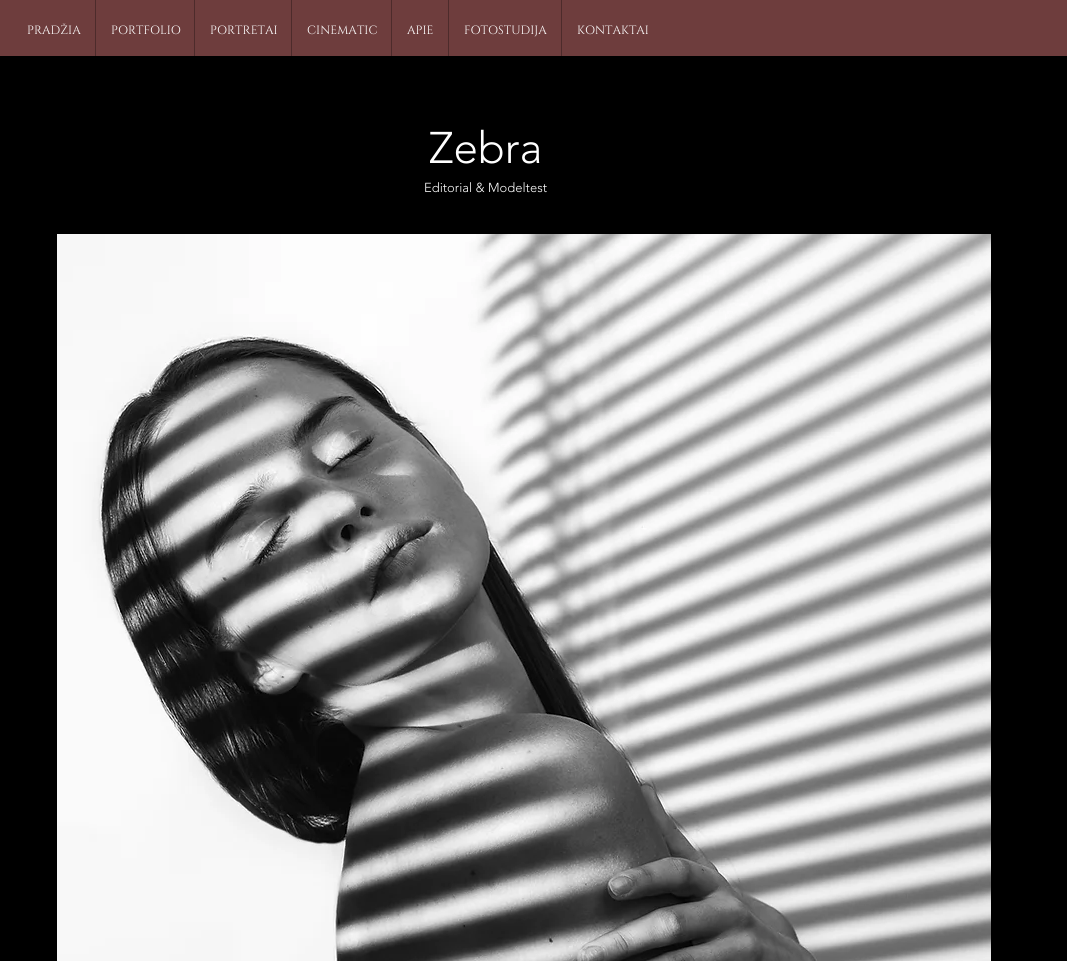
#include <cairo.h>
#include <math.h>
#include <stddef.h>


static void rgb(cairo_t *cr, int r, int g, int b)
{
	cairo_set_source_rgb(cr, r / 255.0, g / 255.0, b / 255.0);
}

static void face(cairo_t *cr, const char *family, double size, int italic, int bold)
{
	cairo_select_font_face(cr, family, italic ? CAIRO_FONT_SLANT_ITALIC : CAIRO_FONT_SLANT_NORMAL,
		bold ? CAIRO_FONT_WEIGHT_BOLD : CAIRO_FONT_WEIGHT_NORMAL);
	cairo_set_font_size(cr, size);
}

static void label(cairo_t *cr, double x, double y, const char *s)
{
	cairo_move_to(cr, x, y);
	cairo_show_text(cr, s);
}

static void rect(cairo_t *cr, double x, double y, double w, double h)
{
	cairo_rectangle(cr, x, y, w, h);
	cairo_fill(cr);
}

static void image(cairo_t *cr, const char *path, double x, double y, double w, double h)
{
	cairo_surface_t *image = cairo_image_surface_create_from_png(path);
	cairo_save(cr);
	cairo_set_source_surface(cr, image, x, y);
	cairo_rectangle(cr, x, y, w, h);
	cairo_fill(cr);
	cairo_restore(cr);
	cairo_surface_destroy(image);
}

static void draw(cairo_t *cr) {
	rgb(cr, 0, 0, 0);
	cairo_paint(cr);
	rgb(cr, 110, 61, 61);
	rect(cr, 0, 0, 1067, 56);
	rgb(cr, 77, 43, 43);
	rect(cr, 561, 0, 1, 56);
	rect(cr, 448, 0, 1, 56);
	rect(cr, 391, 0, 1, 56);
	rect(cr, 291, 0, 1, 56);
	rect(cr, 194, 0, 1, 56);
	rect(cr, 95, 0, 1, 56);
	face(cr, "Cinzel", 12, 0, 0);
	rgb(cr, 255, 255, 255);
	label(cr, 27, 34, "PRADŽIA");
	label(cr, 111, 34, "PORTFOLIO");
	label(cr, 210, 34, "PORTRETAI");
	label(cr, 307, 34, "CINEMATIC");
	label(cr, 407, 34, "APIE");
	label(cr, 464, 34, "FOTOSTUDIJA");
	label(cr, 577, 34, "KONTAKTAI");
	face(cr, "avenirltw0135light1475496 Light", 44, 0, 0);
	label(cr, 429, 163, "Zebra");
	face(cr, "avenirltw0135light1475496 Light", 13, 0, 0);
	label(cr, 424, 192, "Editorial & Modeltest");
	image(cr, "image0.png", 57, 234, 934, 727);
}

int main(void) {
	cairo_surface_t *surface = cairo_image_surface_create(CAIRO_FORMAT_RGB24, 1067, 961);
	cairo_t *cr = cairo_create(surface);
	cairo_font_options_t *options = cairo_font_options_create();
	cairo_font_options_set_hint_metrics(options, CAIRO_HINT_METRICS_OFF);
	cairo_font_options_set_hint_style(options, CAIRO_HINT_STYLE_NONE);
	cairo_set_font_options(cr, options);
	cairo_set_miter_limit(cr, 4);
	draw(cr);
	cairo_surface_write_to_png(surface, "render.png");
	cairo_font_options_destroy(options);
	cairo_destroy(cr);
	cairo_surface_destroy(surface);
	return 0;
}
